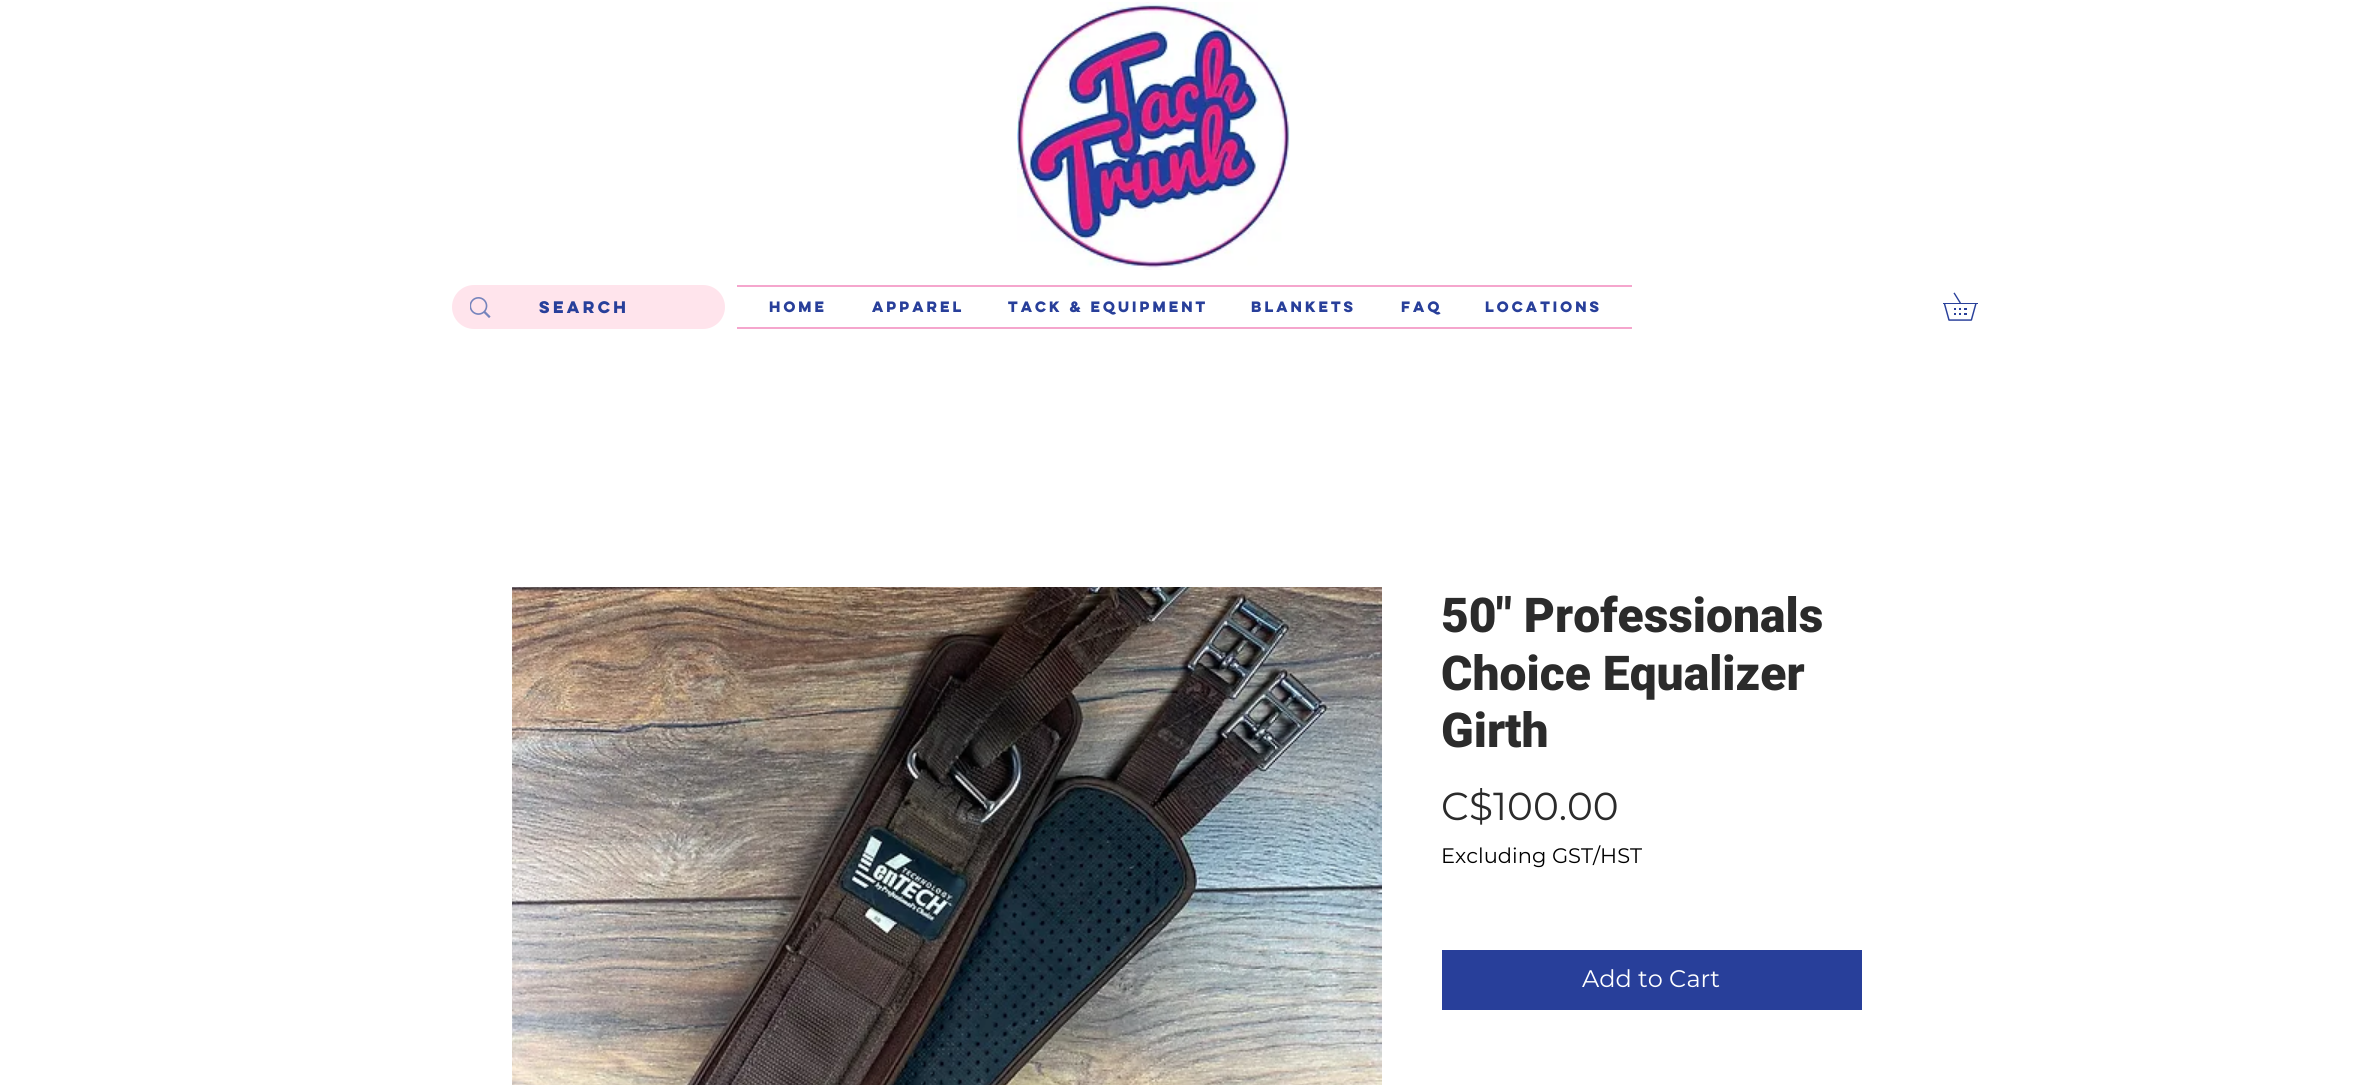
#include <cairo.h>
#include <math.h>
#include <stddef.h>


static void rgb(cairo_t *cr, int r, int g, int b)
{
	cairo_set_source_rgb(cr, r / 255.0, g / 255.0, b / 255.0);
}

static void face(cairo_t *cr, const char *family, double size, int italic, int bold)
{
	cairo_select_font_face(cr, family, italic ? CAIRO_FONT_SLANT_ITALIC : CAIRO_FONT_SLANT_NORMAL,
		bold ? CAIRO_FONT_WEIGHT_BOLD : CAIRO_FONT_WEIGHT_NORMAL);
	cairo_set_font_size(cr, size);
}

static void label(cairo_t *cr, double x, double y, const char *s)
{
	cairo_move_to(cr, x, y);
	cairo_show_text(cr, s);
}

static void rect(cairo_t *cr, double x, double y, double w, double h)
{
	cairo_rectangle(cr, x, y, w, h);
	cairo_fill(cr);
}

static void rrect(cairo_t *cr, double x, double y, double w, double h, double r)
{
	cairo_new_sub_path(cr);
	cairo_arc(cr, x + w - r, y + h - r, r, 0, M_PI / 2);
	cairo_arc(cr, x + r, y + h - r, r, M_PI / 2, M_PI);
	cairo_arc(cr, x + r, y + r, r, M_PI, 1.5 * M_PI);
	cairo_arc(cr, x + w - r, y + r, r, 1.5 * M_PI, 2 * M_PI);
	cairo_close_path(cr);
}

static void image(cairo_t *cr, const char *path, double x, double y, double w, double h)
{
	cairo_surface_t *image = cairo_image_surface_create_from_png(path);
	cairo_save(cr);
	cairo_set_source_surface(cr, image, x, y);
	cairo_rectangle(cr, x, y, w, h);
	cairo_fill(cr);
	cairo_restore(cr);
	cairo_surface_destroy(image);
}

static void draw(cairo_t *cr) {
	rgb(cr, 255, 255, 255);
	cairo_paint(cr);
	rgb(cr, 255, 228, 236);
	rrect(cr, 452, 285, 273, 44, 22);
	cairo_fill(cr);
	image(cr, "image0.png", 470, 297, 21, 21);
	face(cr, "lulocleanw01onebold", 15, 0, 1);
	rgb(cr, 40, 63, 154);
	label(cr, 539, 313, "Search");
	image(cr, "image1.png", 1017, 2, 273, 268);
	rgb(cr, 245, 166, 205);
	rect(cr, 737, 285, 895, 2);
	rect(cr, 737, 327, 895, 2);
	face(cr, "lulocleanw01onebold", 13.5, 0, 1);
	rgb(cr, 40, 63, 154);
	label(cr, 769, 312, "Home");
	label(cr, 872, 312, "Apparel");
	label(cr, 1008, 312, "Tack & Equipment");
	label(cr, 1251, 312, "Blankets");
	label(cr, 1401, 312, "FAQ");
	label(cr, 1485, 312, "Locations");
	image(cr, "image2.png", 1943, 292, 35, 29);
	image(cr, "image3.png", 512, 587, 870, 498);
	face(cr, "Roboto Black", 48, 0, 0);
	rgb(cr, 43, 43, 43);
	label(cr, 1441, 632, "50\" Professionals");
	label(cr, 1441, 690, "Choice Equalizer");
	label(cr, 1441, 747, "Girth");
	face(cr, "Montserrat", 39, 0, 0);
	label(cr, 1441, 820, "C$100.00");
	face(cr, "Montserrat", 21, 0, 0);
	rgb(cr, 0, 0, 0);
	label(cr, 1441, 863, "Excluding GST/HST");
	rgb(cr, 40, 63, 154);
	rect(cr, 1442, 950, 420, 60);
	face(cr, "Montserrat", 24, 0, 0);
	rgb(cr, 255, 255, 255);
	label(cr, 1582, 987, "Add to Cart");
}

int main(void) {
	cairo_surface_t *surface = cairo_image_surface_create(CAIRO_FORMAT_RGB24, 2371, 1085);
	cairo_t *cr = cairo_create(surface);
	cairo_font_options_t *options = cairo_font_options_create();
	cairo_font_options_set_hint_metrics(options, CAIRO_HINT_METRICS_OFF);
	cairo_font_options_set_hint_style(options, CAIRO_HINT_STYLE_NONE);
	cairo_set_font_options(cr, options);
	cairo_set_miter_limit(cr, 4);
	draw(cr);
	cairo_surface_write_to_png(surface, "render.png");
	cairo_font_options_destroy(options);
	cairo_destroy(cr);
	cairo_surface_destroy(surface);
	return 0;
}
